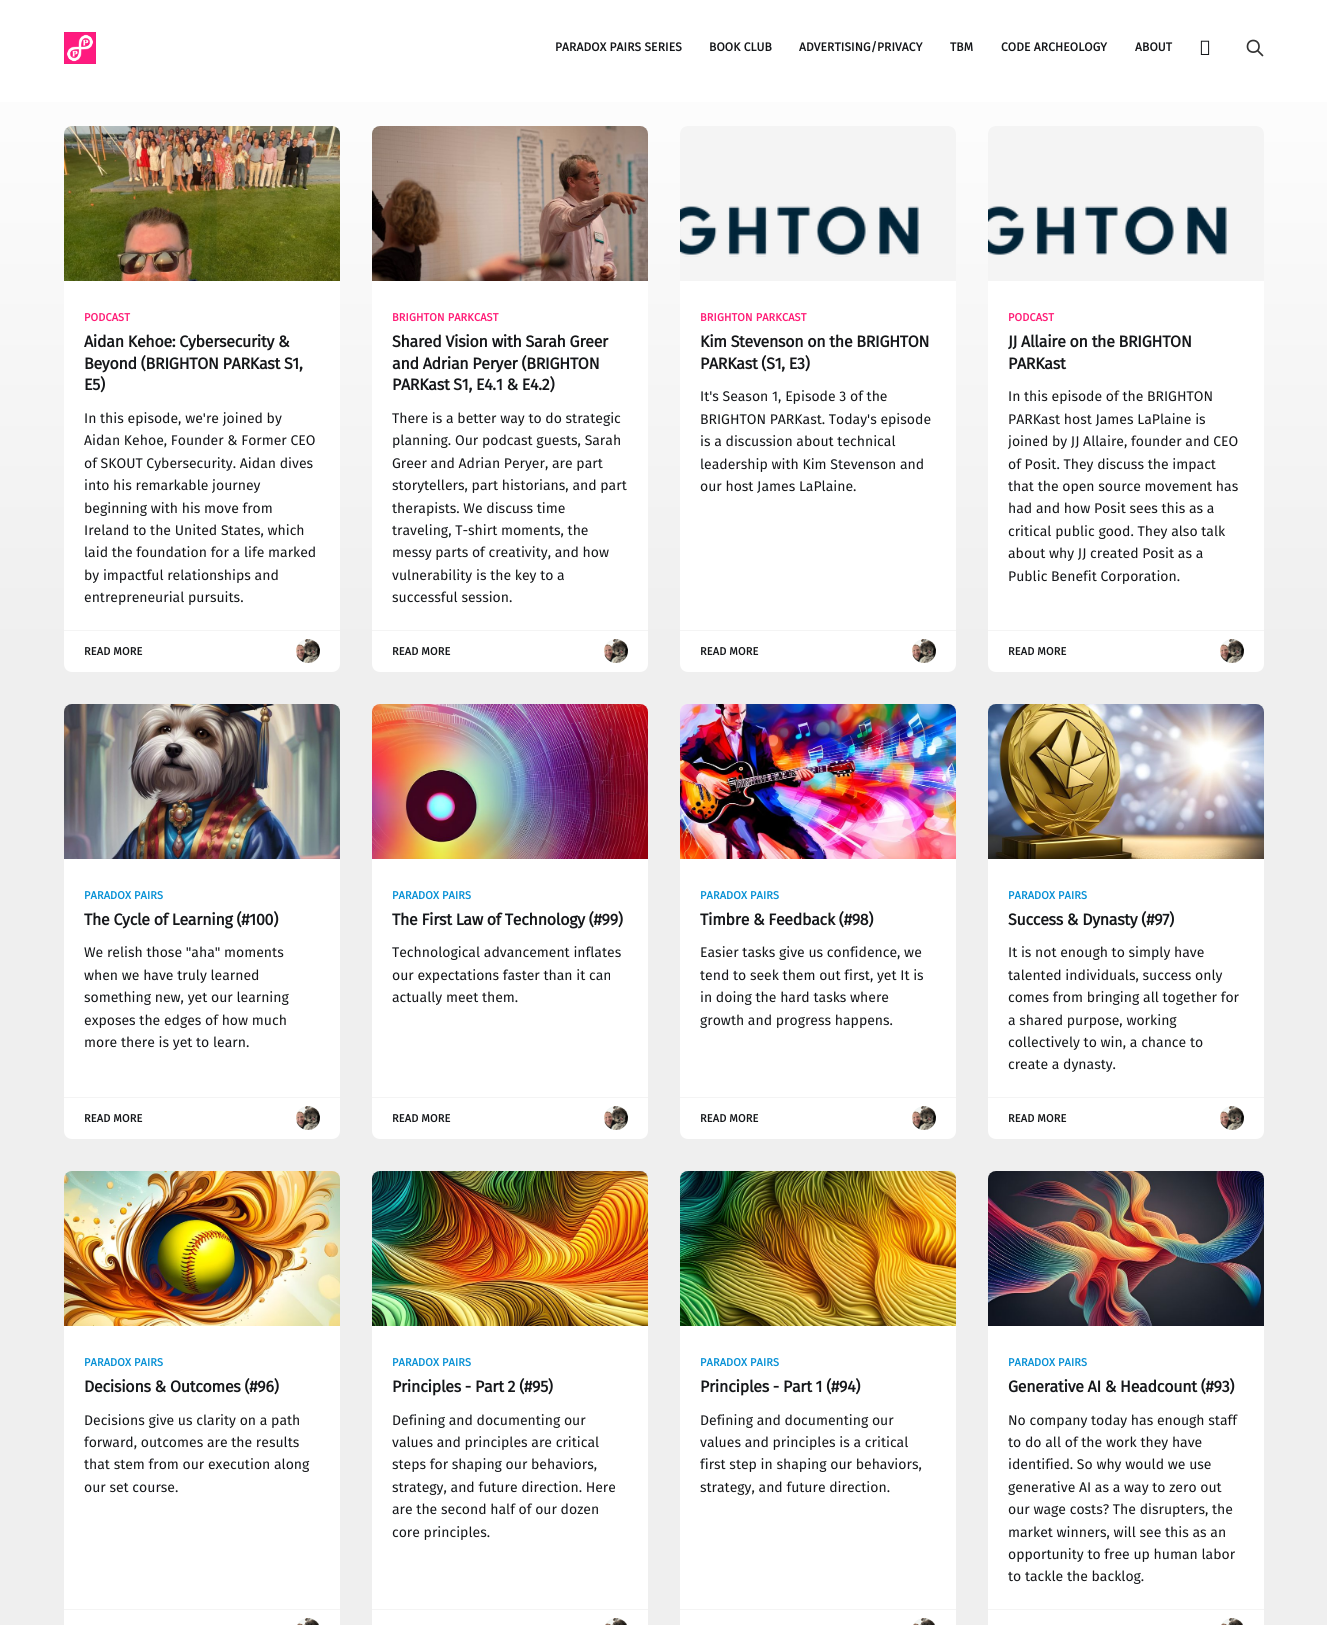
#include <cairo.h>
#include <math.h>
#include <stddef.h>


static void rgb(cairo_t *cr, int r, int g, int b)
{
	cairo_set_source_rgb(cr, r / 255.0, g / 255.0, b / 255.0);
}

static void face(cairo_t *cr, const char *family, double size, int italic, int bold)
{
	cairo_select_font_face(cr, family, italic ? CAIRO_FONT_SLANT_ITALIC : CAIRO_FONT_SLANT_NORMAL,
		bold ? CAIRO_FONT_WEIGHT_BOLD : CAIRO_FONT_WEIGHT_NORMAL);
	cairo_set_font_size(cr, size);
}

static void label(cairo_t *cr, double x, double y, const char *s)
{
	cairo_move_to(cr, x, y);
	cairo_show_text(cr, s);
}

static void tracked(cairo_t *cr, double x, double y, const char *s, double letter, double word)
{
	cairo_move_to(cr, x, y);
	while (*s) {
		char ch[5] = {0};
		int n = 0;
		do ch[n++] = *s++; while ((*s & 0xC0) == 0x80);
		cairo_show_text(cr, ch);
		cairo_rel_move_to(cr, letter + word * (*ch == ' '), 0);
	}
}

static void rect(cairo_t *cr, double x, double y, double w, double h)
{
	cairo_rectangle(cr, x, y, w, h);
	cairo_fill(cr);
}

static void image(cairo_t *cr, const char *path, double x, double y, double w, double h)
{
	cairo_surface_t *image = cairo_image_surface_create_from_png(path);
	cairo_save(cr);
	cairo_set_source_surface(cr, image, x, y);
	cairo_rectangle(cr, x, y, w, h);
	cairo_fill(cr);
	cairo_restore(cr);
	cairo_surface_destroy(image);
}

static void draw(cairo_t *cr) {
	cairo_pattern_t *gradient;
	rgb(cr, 255, 255, 255);
	cairo_paint(cr);
	gradient = cairo_pattern_create_linear(664, 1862, 664, 0);
	cairo_pattern_add_color_stop_rgba(gradient, 0.65, 0.937, 0.937, 0.937, 1);
	cairo_pattern_add_color_stop_rgba(gradient, 1, 1, 1, 1, 1);
	cairo_set_source(cr, gradient);
	cairo_pattern_destroy(gradient);
	rect(cr, 0, 102, 1327, 1523);
	image(cr, "image0.png", 64, 32, 32, 32);
	face(cr, "Fira Sans", 12, 0, 1);
	rgb(cr, 21, 23, 26);
	tracked(cr, 555, 51, "PARADOX PAIRS SERIES", 0.1, 0);
	tracked(cr, 709, 51, "BOOK CLUB", 0.1, 0);
	tracked(cr, 799, 51, "ADVERTISING/PRIVACY", 0.1, 0);
	tracked(cr, 950, 51, "TBM", 0.1, 0);
	tracked(cr, 1001, 51, "CODE ARCHEOLOGY", 0.1, 0);
	tracked(cr, 1135, 51, "ABOUT", 0.1, 0);
	image(cr, "image1.png", 1200, 40, 10, 15);
	cairo_new_path(cr);
	cairo_move_to(cr, 1262.5, 55.5);
	cairo_line_to(cr, 1257.5, 50.5);
	cairo_move_to(cr, 1259, 46.5);
	cairo_curve_to(cr, 1259, 54, 1247.5, 54, 1247.5, 46.5);
	cairo_curve_to(cr, 1247.5, 38.5, 1259, 38.5, 1259, 46.5);
	cairo_close_path(cr);
	rgb(cr, 51, 51, 51);
	cairo_set_line_width(cr, 1.7);
	cairo_set_line_cap(cr, CAIRO_LINE_CAP_ROUND);
	cairo_set_line_join(cr, CAIRO_LINE_JOIN_ROUND);
	cairo_stroke(cr);
	image(cr, "image2.png", 64, 126, 276, 155);
	rgb(cr, 255, 255, 255);
	rect(cr, 64, 281, 276, 349);
	face(cr, "Fira Sans", 11, 0, 1);
	rgb(cr, 255, 26, 117);
	tracked(cr, 84, 321, "PODCAST", 0.1, 0);
	face(cr, "Fira Sans", 16, 0, 1);
	rgb(cr, 21, 23, 26);
	tracked(cr, 84, 347, "Aidan Kehoe: Cybersecurity &", -0.3, 0);
	tracked(cr, 84, 369, "Beyond (BRIGHTON PARKast S1,", -0.3, 0);
	tracked(cr, 84, 390, "E5)", -0.3, 0);
	face(cr, "Fira Sans", 14, 0, 0);
	label(cr, 84, 423, "In this episode, we're joined by");
	label(cr, 84, 445, "Aidan Kehoe, Founder & Former CEO");
	label(cr, 84, 468, "of SKOUT Cybersecurity. Aidan dives");
	label(cr, 84, 490, "into his remarkable journey");
	label(cr, 84, 513, "beginning with his move from");
	label(cr, 84, 535, "Ireland to the United States, which");
	label(cr, 84, 557, "laid the foundation for a life marked");
	label(cr, 84, 580, "by impactful relationships and");
	label(cr, 84, 602, "entrepreneurial pursuits.");
	rgb(cr, 255, 255, 255);
	cairo_new_path(cr);
	cairo_move_to(cr, 64, 630);
	cairo_line_to(cr, 340, 630);
	cairo_line_to(cr, 340, 664);
	cairo_curve_to(cr, 340, 668.5, 336.5, 672, 332, 672);
	cairo_line_to(cr, 72, 672);
	cairo_curve_to(cr, 67.5, 672, 64, 668.5, 64, 664);
	cairo_close_path(cr);
	cairo_fill(cr);
	rgb(cr, 244, 244, 244);
	rect(cr, 64, 630, 276, 1);
	face(cr, "Fira Sans", 11, 0, 1);
	rgb(cr, 21, 23, 26);
	tracked(cr, 84, 655, "READ MORE", 0.1, 0);
	image(cr, "image3.png", 296, 639, 24, 24);
	image(cr, "image4.png", 372, 126, 276, 155);
	rgb(cr, 255, 255, 255);
	rect(cr, 372, 281, 276, 349);
	rgb(cr, 255, 26, 117);
	tracked(cr, 392, 321, "BRIGHTON PARKCAST", 0.1, 0);
	face(cr, "Fira Sans", 16, 0, 1);
	rgb(cr, 21, 23, 26);
	tracked(cr, 392, 347, "Shared Vision with Sarah Greer", -0.3, 0);
	tracked(cr, 392, 369, "and Adrian Peryer (BRIGHTON", -0.3, 0);
	tracked(cr, 392, 390, "PARKast S1, E4.1 & E4.2)", -0.3, 0);
	face(cr, "Fira Sans", 14, 0, 0);
	label(cr, 392, 423, "There is a better way to do strategic");
	label(cr, 392, 445, "planning. Our podcast guests, Sarah");
	label(cr, 392, 468, "Greer and Adrian Peryer, are part");
	label(cr, 392, 490, "storytellers, part historians, and part");
	label(cr, 392, 513, "therapists. We discuss time");
	label(cr, 392, 535, "traveling, T-shirt moments, the");
	label(cr, 392, 557, "messy parts of creativity, and how");
	label(cr, 392, 580, "vulnerability is the key to a");
	label(cr, 392, 602, "successful session.");
	rgb(cr, 255, 255, 255);
	cairo_new_path(cr);
	cairo_move_to(cr, 372, 630);
	cairo_line_to(cr, 648, 630);
	cairo_line_to(cr, 648, 664);
	cairo_curve_to(cr, 648, 668.5, 644.5, 672, 640, 672);
	cairo_line_to(cr, 380, 672);
	cairo_curve_to(cr, 375.5, 672, 372, 668.5, 372, 664);
	cairo_close_path(cr);
	cairo_fill(cr);
	rgb(cr, 244, 244, 244);
	rect(cr, 372, 630, 276, 1);
	face(cr, "Fira Sans", 11, 0, 1);
	rgb(cr, 21, 23, 26);
	tracked(cr, 392, 655, "READ MORE", 0.1, 0);
	image(cr, "image5.png", 604, 639, 24, 24);
	rgb(cr, 244, 244, 244);
	cairo_new_path(cr);
	cairo_move_to(cr, 688, 126);
	cairo_line_to(cr, 948, 126);
	cairo_curve_to(cr, 952.5, 126, 956, 129.5, 956, 134);
	cairo_line_to(cr, 956, 281);
	cairo_line_to(cr, 680, 281);
	cairo_line_to(cr, 680, 134);
	cairo_curve_to(cr, 680, 129.5, 683.5, 126, 688, 126);
	cairo_close_path(cr);
	cairo_fill(cr);
	image(cr, "image6.png", 680, 206, 239, 51);
	rgb(cr, 255, 255, 255);
	rect(cr, 680, 281, 276, 349);
	rgb(cr, 255, 26, 117);
	tracked(cr, 700, 321, "BRIGHTON PARKCAST", 0.1, 0);
	face(cr, "Fira Sans", 16, 0, 1);
	rgb(cr, 21, 23, 26);
	tracked(cr, 700, 347, "Kim Stevenson on the BRIGHTON", -0.3, 0);
	tracked(cr, 700, 369, "PARKast (S1, E3)", -0.3, 0);
	face(cr, "Fira Sans", 14, 0, 0);
	label(cr, 700, 401, "It's Season 1, Episode 3 of the");
	label(cr, 700, 424, "BRIGHTON PARKast. Today's episode");
	label(cr, 700, 446, "is a discussion about technical");
	label(cr, 700, 469, "leadership with Kim Stevenson and");
	label(cr, 700, 491, "our host James LaPlaine.");
	rgb(cr, 255, 255, 255);
	cairo_new_path(cr);
	cairo_move_to(cr, 680, 630);
	cairo_line_to(cr, 956, 630);
	cairo_line_to(cr, 956, 664);
	cairo_curve_to(cr, 956, 668.5, 952.5, 672, 948, 672);
	cairo_line_to(cr, 688, 672);
	cairo_curve_to(cr, 683.5, 672, 680, 668.5, 680, 664);
	cairo_close_path(cr);
	cairo_fill(cr);
	rgb(cr, 244, 244, 244);
	rect(cr, 680, 630, 276, 1);
	face(cr, "Fira Sans", 11, 0, 1);
	rgb(cr, 21, 23, 26);
	tracked(cr, 700, 655, "READ MORE", 0.1, 0);
	image(cr, "image5.png", 912, 639, 24, 24);
	rgb(cr, 244, 244, 244);
	cairo_new_path(cr);
	cairo_move_to(cr, 996, 126);
	cairo_line_to(cr, 1256, 126);
	cairo_curve_to(cr, 1260.5, 126, 1264, 129.5, 1264, 134);
	cairo_line_to(cr, 1264, 281);
	cairo_line_to(cr, 988, 281);
	cairo_line_to(cr, 988, 134);
	cairo_curve_to(cr, 988, 129.5, 991.5, 126, 996, 126);
	cairo_close_path(cr);
	cairo_fill(cr);
	image(cr, "image7.png", 988, 206, 239, 49);
	rgb(cr, 255, 255, 255);
	rect(cr, 988, 281, 276, 349);
	rgb(cr, 255, 26, 117);
	tracked(cr, 1008, 321, "PODCAST", 0.1, 0);
	face(cr, "Fira Sans", 16, 0, 1);
	rgb(cr, 21, 23, 26);
	tracked(cr, 1008, 347, "JJ Allaire on the BRIGHTON", -0.3, 0);
	tracked(cr, 1008, 369, "PARKast", -0.3, 0);
	face(cr, "Fira Sans", 14, 0, 0);
	label(cr, 1008, 401, "In this episode of the BRIGHTON");
	label(cr, 1008, 424, "PARKast host James LaPlaine is");
	label(cr, 1008, 446, "joined by JJ Allaire, founder and CEO");
	label(cr, 1008, 469, "of Posit. They discuss the impact");
	label(cr, 1008, 491, "that the open source movement has");
	label(cr, 1008, 513, "had and how Posit sees this as a");
	label(cr, 1008, 536, "critical public good. They also talk");
	label(cr, 1008, 558, "about why JJ created Posit as a");
	label(cr, 1008, 581, "Public Benefit Corporation.");
	rgb(cr, 255, 255, 255);
	cairo_new_path(cr);
	cairo_move_to(cr, 988, 630);
	cairo_line_to(cr, 1264, 630);
	cairo_line_to(cr, 1264, 664);
	cairo_curve_to(cr, 1264, 668.5, 1260.5, 672, 1256, 672);
	cairo_line_to(cr, 996, 672);
	cairo_curve_to(cr, 991.5, 672, 988, 668.5, 988, 664);
	cairo_close_path(cr);
	cairo_fill(cr);
	rgb(cr, 244, 244, 244);
	rect(cr, 988, 630, 276, 1);
	face(cr, "Fira Sans", 11, 0, 1);
	rgb(cr, 21, 23, 26);
	tracked(cr, 1008, 655, "READ MORE", 0.1, 0);
	image(cr, "image5.png", 1220, 639, 24, 24);
	image(cr, "image8.png", 64, 704, 276, 155);
	rgb(cr, 255, 255, 255);
	rect(cr, 64, 859, 276, 238);
	rgb(cr, 6, 144, 213);
	tracked(cr, 84, 899, "PARADOX PAIRS", 0.1, 0);
	face(cr, "Fira Sans", 16, 0, 1);
	rgb(cr, 21, 23, 26);
	tracked(cr, 84, 925, "The Cycle of Learning (#100)", -0.3, 0);
	face(cr, "Fira Sans", 14, 0, 0);
	label(cr, 84, 957, "We relish those \"aha\" moments");
	label(cr, 84, 980, "when we have truly learned");
	label(cr, 84, 1002, "something new, yet our learning");
	label(cr, 84, 1025, "exposes the edges of how much");
	label(cr, 84, 1047, "more there is yet to learn.");
	rgb(cr, 255, 255, 255);
	cairo_new_path(cr);
	cairo_move_to(cr, 64, 1097);
	cairo_line_to(cr, 340, 1097);
	cairo_line_to(cr, 340, 1131);
	cairo_curve_to(cr, 340, 1135.5, 336.5, 1139, 332, 1139);
	cairo_line_to(cr, 72, 1139);
	cairo_curve_to(cr, 67.5, 1139, 64, 1135.5, 64, 1131);
	cairo_close_path(cr);
	cairo_fill(cr);
	rgb(cr, 244, 244, 244);
	rect(cr, 64, 1097, 276, 1);
	face(cr, "Fira Sans", 11, 0, 1);
	rgb(cr, 21, 23, 26);
	tracked(cr, 84, 1122, "READ MORE", 0.1, 0);
	image(cr, "image3.png", 296, 1106, 24, 24);
	image(cr, "image9.png", 372, 704, 276, 155);
	rgb(cr, 255, 255, 255);
	rect(cr, 372, 859, 276, 238);
	rgb(cr, 6, 144, 213);
	tracked(cr, 392, 899, "PARADOX PAIRS", 0.1, 0);
	face(cr, "Fira Sans", 16, 0, 1);
	rgb(cr, 21, 23, 26);
	tracked(cr, 392, 925, "The First Law of Technology (#99)", -0.3, 0);
	face(cr, "Fira Sans", 14, 0, 0);
	label(cr, 392, 957, "Technological advancement inflates");
	label(cr, 392, 980, "our expectations faster than it can");
	label(cr, 392, 1002, "actually meet them.");
	rgb(cr, 255, 255, 255);
	cairo_new_path(cr);
	cairo_move_to(cr, 372, 1097);
	cairo_line_to(cr, 648, 1097);
	cairo_line_to(cr, 648, 1131);
	cairo_curve_to(cr, 648, 1135.5, 644.5, 1139, 640, 1139);
	cairo_line_to(cr, 380, 1139);
	cairo_curve_to(cr, 375.5, 1139, 372, 1135.5, 372, 1131);
	cairo_close_path(cr);
	cairo_fill(cr);
	rgb(cr, 244, 244, 244);
	rect(cr, 372, 1097, 276, 1);
	face(cr, "Fira Sans", 11, 0, 1);
	rgb(cr, 21, 23, 26);
	tracked(cr, 392, 1122, "READ MORE", 0.1, 0);
	image(cr, "image5.png", 604, 1106, 24, 24);
	image(cr, "image10.png", 680, 704, 276, 155);
	rgb(cr, 255, 255, 255);
	rect(cr, 680, 859, 276, 238);
	rgb(cr, 6, 144, 213);
	tracked(cr, 700, 899, "PARADOX PAIRS", 0.1, 0);
	face(cr, "Fira Sans", 16, 0, 1);
	rgb(cr, 21, 23, 26);
	tracked(cr, 700, 925, "Timbre & Feedback (#98)", -0.3, 0);
	face(cr, "Fira Sans", 14, 0, 0);
	label(cr, 700, 957, "Easier tasks give us confidence, we");
	label(cr, 700, 980, "tend to seek them out first, yet It is");
	label(cr, 700, 1002, "in doing the hard tasks where");
	label(cr, 700, 1025, "growth and progress happens.");
	rgb(cr, 255, 255, 255);
	cairo_new_path(cr);
	cairo_move_to(cr, 680, 1097);
	cairo_line_to(cr, 956, 1097);
	cairo_line_to(cr, 956, 1131);
	cairo_curve_to(cr, 956, 1135.5, 952.5, 1139, 948, 1139);
	cairo_line_to(cr, 688, 1139);
	cairo_curve_to(cr, 683.5, 1139, 680, 1135.5, 680, 1131);
	cairo_close_path(cr);
	cairo_fill(cr);
	rgb(cr, 244, 244, 244);
	rect(cr, 680, 1097, 276, 1);
	face(cr, "Fira Sans", 11, 0, 1);
	rgb(cr, 21, 23, 26);
	tracked(cr, 700, 1122, "READ MORE", 0.1, 0);
	image(cr, "image5.png", 912, 1106, 24, 24);
	image(cr, "image11.png", 988, 704, 276, 155);
	rgb(cr, 255, 255, 255);
	rect(cr, 988, 859, 276, 238);
	rgb(cr, 6, 144, 213);
	tracked(cr, 1008, 899, "PARADOX PAIRS", 0.1, 0);
	face(cr, "Fira Sans", 16, 0, 1);
	rgb(cr, 21, 23, 26);
	tracked(cr, 1008, 925, "Success & Dynasty (#97)", -0.3, 0);
	face(cr, "Fira Sans", 14, 0, 0);
	label(cr, 1008, 957, "It is not enough to simply have");
	label(cr, 1008, 980, "talented individuals, success only");
	label(cr, 1008, 1002, "comes from bringing all together for");
	label(cr, 1008, 1025, "a shared purpose, working");
	label(cr, 1008, 1047, "collectively to win, a chance to");
	label(cr, 1008, 1069, "create a dynasty.");
	rgb(cr, 255, 255, 255);
	cairo_new_path(cr);
	cairo_move_to(cr, 988, 1097);
	cairo_line_to(cr, 1264, 1097);
	cairo_line_to(cr, 1264, 1131);
	cairo_curve_to(cr, 1264, 1135.5, 1260.5, 1139, 1256, 1139);
	cairo_line_to(cr, 996, 1139);
	cairo_curve_to(cr, 991.5, 1139, 988, 1135.5, 988, 1131);
	cairo_close_path(cr);
	cairo_fill(cr);
	rgb(cr, 244, 244, 244);
	rect(cr, 988, 1097, 276, 1);
	face(cr, "Fira Sans", 11, 0, 1);
	rgb(cr, 21, 23, 26);
	tracked(cr, 1008, 1122, "READ MORE", 0.1, 0);
	image(cr, "image5.png", 1220, 1106, 24, 24);
	image(cr, "image12.png", 64, 1171, 276, 155);
	rgb(cr, 255, 255, 255);
	rect(cr, 64, 1326, 276, 283);
	rgb(cr, 6, 144, 213);
	tracked(cr, 84, 1366, "PARADOX PAIRS", 0.1, 0);
	face(cr, "Fira Sans", 16, 0, 1);
	rgb(cr, 21, 23, 26);
	tracked(cr, 84, 1392, "Decisions & Outcomes (#96)", -0.3, 0);
	face(cr, "Fira Sans", 14, 0, 0);
	label(cr, 84, 1425, "Decisions give us clarity on a path");
	label(cr, 84, 1447, "forward, outcomes are the results");
	label(cr, 84, 1469, "that stem from our execution along");
	label(cr, 84, 1492, "our set course.");
	rgb(cr, 255, 255, 255);
	rect(cr, 64, 1610, 276, 15);
	rgb(cr, 244, 244, 244);
	rect(cr, 64, 1609, 276, 1);
	image(cr, "image13.png", 297, 1618, 22, 7);
	image(cr, "image14.png", 372, 1171, 276, 155);
	rgb(cr, 255, 255, 255);
	rect(cr, 372, 1326, 276, 283);
	face(cr, "Fira Sans", 11, 0, 1);
	rgb(cr, 6, 144, 213);
	tracked(cr, 392, 1366, "PARADOX PAIRS", 0.1, 0);
	face(cr, "Fira Sans", 16, 0, 1);
	rgb(cr, 21, 23, 26);
	tracked(cr, 392, 1392, "Principles - Part 2 (#95)", -0.3, 0);
	face(cr, "Fira Sans", 14, 0, 0);
	label(cr, 392, 1425, "Defining and documenting our");
	label(cr, 392, 1447, "values and principles are critical");
	label(cr, 392, 1469, "steps for shaping our behaviors,");
	label(cr, 392, 1492, "strategy, and future direction. Here");
	label(cr, 392, 1514, "are the second half of our dozen");
	label(cr, 392, 1537, "core principles.");
	rgb(cr, 255, 255, 255);
	rect(cr, 372, 1610, 276, 15);
	rgb(cr, 244, 244, 244);
	rect(cr, 372, 1609, 276, 1);
	image(cr, "image13.png", 605, 1618, 22, 7);
	image(cr, "image15.png", 680, 1171, 276, 155);
	rgb(cr, 255, 255, 255);
	rect(cr, 680, 1326, 276, 283);
	face(cr, "Fira Sans", 11, 0, 1);
	rgb(cr, 6, 144, 213);
	tracked(cr, 700, 1366, "PARADOX PAIRS", 0.1, 0);
	face(cr, "Fira Sans", 16, 0, 1);
	rgb(cr, 21, 23, 26);
	tracked(cr, 700, 1392, "Principles - Part 1 (#94)", -0.3, 0);
	face(cr, "Fira Sans", 14, 0, 0);
	label(cr, 700, 1425, "Defining and documenting our");
	label(cr, 700, 1447, "values and principles is a critical");
	label(cr, 700, 1469, "first step in shaping our behaviors,");
	label(cr, 700, 1492, "strategy, and future direction.");
	rgb(cr, 255, 255, 255);
	rect(cr, 680, 1610, 276, 15);
	rgb(cr, 244, 244, 244);
	rect(cr, 680, 1609, 276, 1);
	image(cr, "image13.png", 913, 1618, 22, 7);
	image(cr, "image16.png", 988, 1171, 276, 155);
	rgb(cr, 255, 255, 255);
	rect(cr, 988, 1326, 276, 283);
	face(cr, "Fira Sans", 11, 0, 1);
	rgb(cr, 6, 144, 213);
	tracked(cr, 1008, 1366, "PARADOX PAIRS", 0.1, 0);
	face(cr, "Fira Sans", 16, 0, 1);
	rgb(cr, 21, 23, 26);
	tracked(cr, 1008, 1392, "Generative AI & Headcount (#93)", -0.3, 0);
	face(cr, "Fira Sans", 14, 0, 0);
	label(cr, 1008, 1425, "No company today has enough staff");
	label(cr, 1008, 1447, "to do all of the work they have");
	label(cr, 1008, 1469, "identified. So why would we use");
	label(cr, 1008, 1492, "generative AI as a way to zero out");
	label(cr, 1008, 1514, "our wage costs? The disrupters, the");
	label(cr, 1008, 1537, "market winners, will see this as an");
	label(cr, 1008, 1559, "opportunity to free up human labor");
	label(cr, 1008, 1581, "to tackle the backlog.");
	rgb(cr, 255, 255, 255);
	rect(cr, 988, 1610, 276, 15);
	rgb(cr, 244, 244, 244);
	rect(cr, 988, 1609, 276, 1);
	image(cr, "image13.png", 1221, 1618, 22, 7);
}

int main(void) {
	cairo_surface_t *surface = cairo_image_surface_create(CAIRO_FORMAT_RGB24, 1327, 1625);
	cairo_t *cr = cairo_create(surface);
	cairo_font_options_t *options = cairo_font_options_create();
	cairo_font_options_set_hint_metrics(options, CAIRO_HINT_METRICS_OFF);
	cairo_font_options_set_hint_style(options, CAIRO_HINT_STYLE_NONE);
	cairo_set_font_options(cr, options);
	cairo_set_miter_limit(cr, 4);
	draw(cr);
	cairo_surface_write_to_png(surface, "render.png");
	cairo_font_options_destroy(options);
	cairo_destroy(cr);
	cairo_surface_destroy(surface);
	return 0;
}
